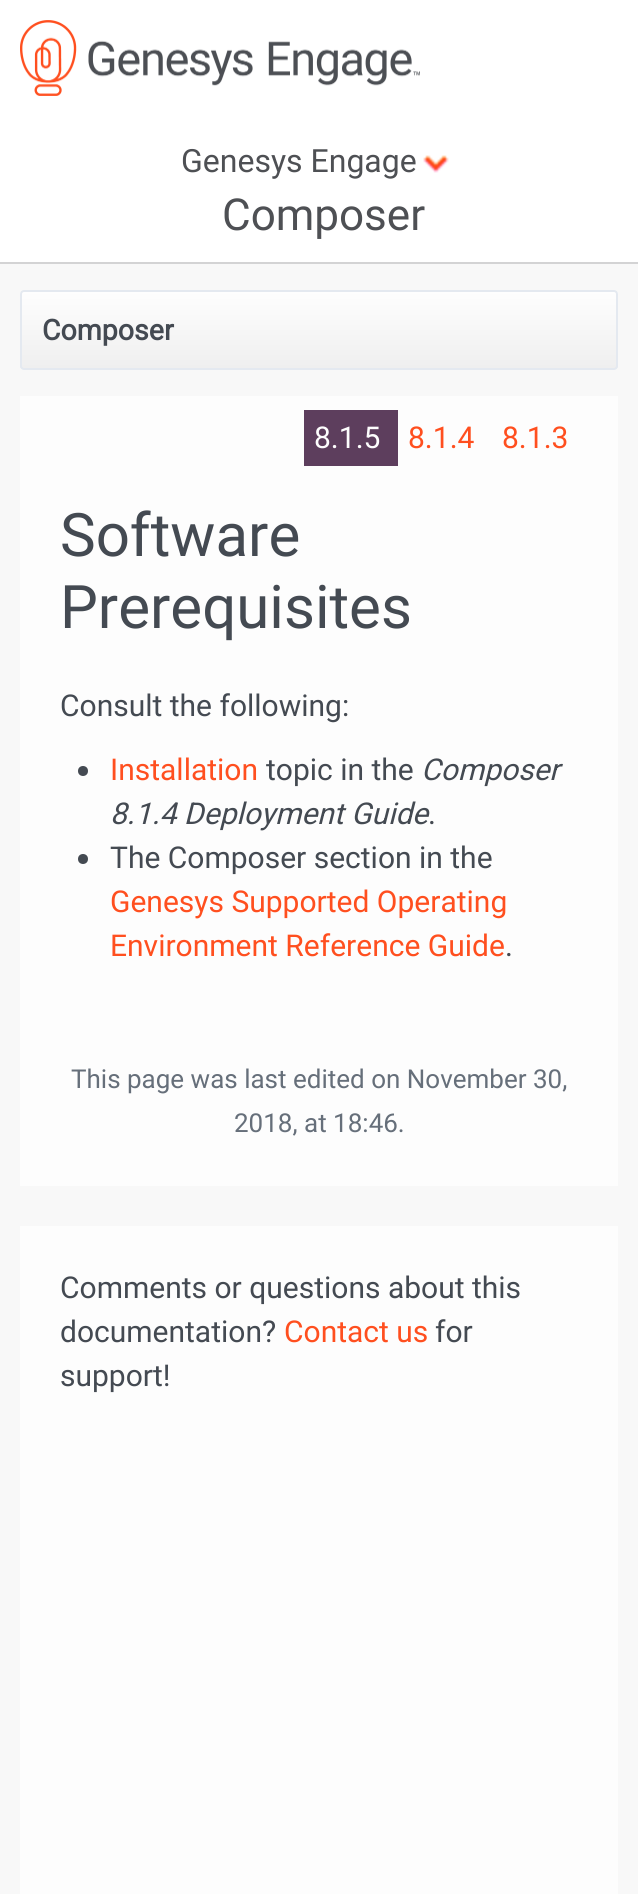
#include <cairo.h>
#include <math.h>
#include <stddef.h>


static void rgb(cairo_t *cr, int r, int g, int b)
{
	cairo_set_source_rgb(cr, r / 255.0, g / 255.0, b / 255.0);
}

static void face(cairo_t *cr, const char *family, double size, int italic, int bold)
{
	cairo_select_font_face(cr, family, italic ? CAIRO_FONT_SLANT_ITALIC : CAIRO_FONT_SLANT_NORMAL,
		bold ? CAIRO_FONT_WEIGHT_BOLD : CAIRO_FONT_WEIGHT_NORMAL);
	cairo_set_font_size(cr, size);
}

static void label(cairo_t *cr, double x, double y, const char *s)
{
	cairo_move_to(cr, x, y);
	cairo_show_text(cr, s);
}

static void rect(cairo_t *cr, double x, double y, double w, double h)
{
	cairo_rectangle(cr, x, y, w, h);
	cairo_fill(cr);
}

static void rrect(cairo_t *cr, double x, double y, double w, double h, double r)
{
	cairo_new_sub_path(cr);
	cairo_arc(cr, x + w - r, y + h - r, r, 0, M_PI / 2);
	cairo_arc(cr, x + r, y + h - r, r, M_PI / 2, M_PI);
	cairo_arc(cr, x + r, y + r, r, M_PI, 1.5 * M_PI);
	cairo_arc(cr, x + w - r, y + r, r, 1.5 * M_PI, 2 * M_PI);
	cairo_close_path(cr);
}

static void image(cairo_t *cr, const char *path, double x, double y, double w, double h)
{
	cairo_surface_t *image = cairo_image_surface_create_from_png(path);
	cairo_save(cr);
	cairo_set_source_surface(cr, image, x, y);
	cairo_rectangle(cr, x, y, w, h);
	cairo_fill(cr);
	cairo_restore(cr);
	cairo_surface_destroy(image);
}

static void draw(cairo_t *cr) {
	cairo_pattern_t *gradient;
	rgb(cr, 248, 248, 248);
	cairo_paint(cr);
	rgb(cr, 255, 255, 255);
	rect(cr, 0, 0, 638, 262);
	rgb(cr, 211, 211, 212);
	rect(cr, 0, 262, 638, 2);
	image(cr, "image0.png", 20, 20, 400, 76);
	face(cr, "Roboto", 32, 0, 0);
	rgb(cr, 78, 80, 84);
	label(cr, 181, 172, "Genesys Engage");
	image(cr, "image1.png", 423, 155, 26, 18);
	face(cr, "Roboto", 44, 0, 0);
	label(cr, 222, 230, "Composer");
	cairo_save(cr);
	rrect(cr, 20, 290, 598, 80, 4);
	cairo_clip(cr);
	gradient = cairo_pattern_create_linear(319, 292, 319, 368);
	cairo_pattern_add_color_stop_rgba(gradient, 0, 0.996, 0.996, 0.996, 1);
	cairo_pattern_add_color_stop_rgba(gradient, 1, 0.937, 0.937, 0.937, 1);
	cairo_set_source(cr, gradient);
	cairo_pattern_destroy(gradient);
	rect(cr, 20, 292, 598, 76);
	cairo_restore(cr);
	rrect(cr, 21, 291, 596, 78, 3);
	rgb(cr, 228, 233, 240);
	cairo_stroke(cr);
	face(cr, "Roboto", 28.5, 0, 1);
	rgb(cr, 68, 74, 82);
	label(cr, 42, 340, "Composer");
	rgb(cr, 253, 253, 253);
	rect(cr, 20, 396, 598, 1498);
	rgb(cr, 93, 62, 93);
	rect(cr, 304, 410, 94, 56);
	face(cr, "Roboto", 30, 0, 0);
	rgb(cr, 253, 253, 253);
	label(cr, 314, 448, "8.1.5");
	rgb(cr, 255, 79, 31);
	label(cr, 408, 448, "8.1.4");
	label(cr, 502, 448, "8.1.3");
	face(cr, "Roboto", 60, 0, 0);
	rgb(cr, 68, 74, 82);
	label(cr, 60, 556, "Software");
	label(cr, 60, 628, "Prerequisites");
	face(cr, "Roboto", 30, 0, 0);
	label(cr, 60, 716, "Consult the following:");
	cairo_new_path(cr);
	cairo_arc(cr, 83, 771, 5, 0, 2 * M_PI);
	cairo_fill(cr);
	rgb(cr, 255, 79, 31);
	label(cr, 110, 780, "Installation");
	rgb(cr, 68, 74, 82);
	label(cr, 266, 780, "topic in the");
	face(cr, "Roboto", 30, 1, 0);
	label(cr, 421, 780, "Composer");
	label(cr, 110, 824, "8.1.4 Deployment Guide");
	face(cr, "Roboto", 30, 0, 0);
	label(cr, 428, 824, ".");
	cairo_new_path(cr);
	cairo_arc(cr, 83, 859, 5, 0, 2 * M_PI);
	cairo_fill(cr);
	label(cr, 110, 868, "The Composer section in the");
	rgb(cr, 255, 79, 31);
	label(cr, 110, 912, "Genesys Supported Operating");
	label(cr, 110, 956, "Environment Reference Guide");
	rgb(cr, 68, 74, 82);
	label(cr, 505, 956, ".");
	face(cr, "Roboto", 26, 0, 0);
	rgb(cr, 102, 111, 122);
	label(cr, 71, 1088, "This page was last edited on November 30,");
	label(cr, 234, 1132, "2018, at 18:46.");
	rgb(cr, 248, 248, 248);
	rect(cr, 20, 1186, 598, 40);
	face(cr, "Roboto", 30, 0, 0);
	rgb(cr, 68, 74, 82);
	label(cr, 60, 1298, "Comments or questions about this");
	label(cr, 60, 1342, "documentation?");
	rgb(cr, 255, 79, 31);
	label(cr, 284, 1342, "Contact us");
	rgb(cr, 68, 74, 82);
	label(cr, 435, 1342, "for");
	label(cr, 60, 1386, "support!");
}

int main(void) {
	cairo_surface_t *surface = cairo_image_surface_create(CAIRO_FORMAT_RGB24, 638, 1894);
	cairo_t *cr = cairo_create(surface);
	cairo_font_options_t *options = cairo_font_options_create();
	cairo_font_options_set_hint_metrics(options, CAIRO_HINT_METRICS_OFF);
	cairo_font_options_set_hint_style(options, CAIRO_HINT_STYLE_NONE);
	cairo_set_font_options(cr, options);
	cairo_set_miter_limit(cr, 4);
	draw(cr);
	cairo_surface_write_to_png(surface, "render.png");
	cairo_font_options_destroy(options);
	cairo_destroy(cr);
	cairo_surface_destroy(surface);
	return 0;
}
